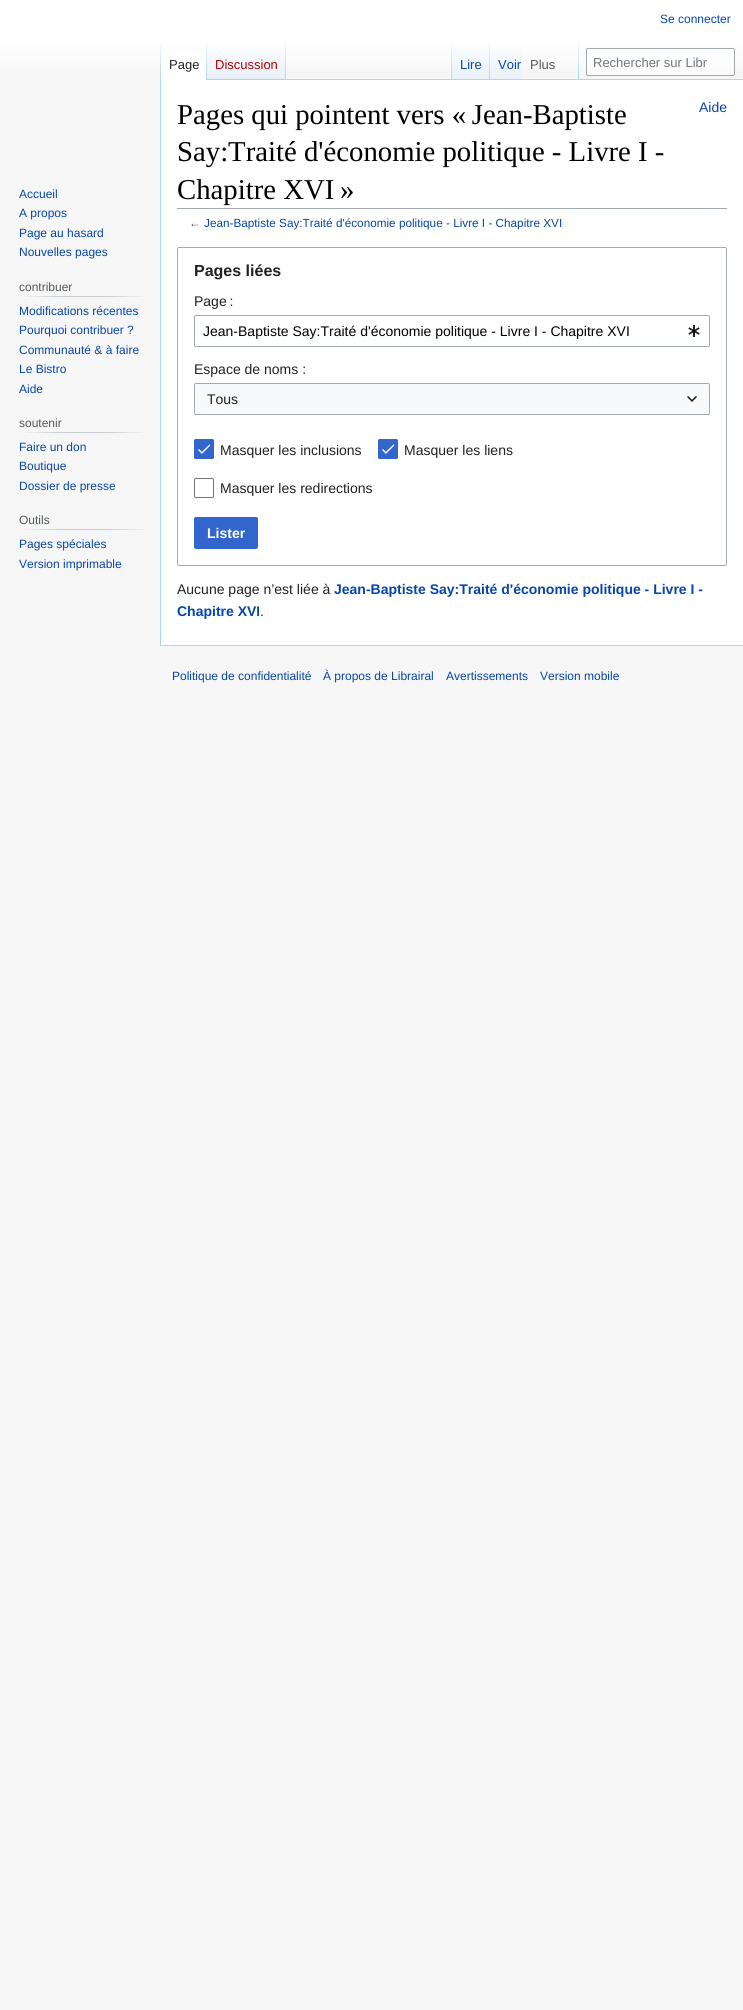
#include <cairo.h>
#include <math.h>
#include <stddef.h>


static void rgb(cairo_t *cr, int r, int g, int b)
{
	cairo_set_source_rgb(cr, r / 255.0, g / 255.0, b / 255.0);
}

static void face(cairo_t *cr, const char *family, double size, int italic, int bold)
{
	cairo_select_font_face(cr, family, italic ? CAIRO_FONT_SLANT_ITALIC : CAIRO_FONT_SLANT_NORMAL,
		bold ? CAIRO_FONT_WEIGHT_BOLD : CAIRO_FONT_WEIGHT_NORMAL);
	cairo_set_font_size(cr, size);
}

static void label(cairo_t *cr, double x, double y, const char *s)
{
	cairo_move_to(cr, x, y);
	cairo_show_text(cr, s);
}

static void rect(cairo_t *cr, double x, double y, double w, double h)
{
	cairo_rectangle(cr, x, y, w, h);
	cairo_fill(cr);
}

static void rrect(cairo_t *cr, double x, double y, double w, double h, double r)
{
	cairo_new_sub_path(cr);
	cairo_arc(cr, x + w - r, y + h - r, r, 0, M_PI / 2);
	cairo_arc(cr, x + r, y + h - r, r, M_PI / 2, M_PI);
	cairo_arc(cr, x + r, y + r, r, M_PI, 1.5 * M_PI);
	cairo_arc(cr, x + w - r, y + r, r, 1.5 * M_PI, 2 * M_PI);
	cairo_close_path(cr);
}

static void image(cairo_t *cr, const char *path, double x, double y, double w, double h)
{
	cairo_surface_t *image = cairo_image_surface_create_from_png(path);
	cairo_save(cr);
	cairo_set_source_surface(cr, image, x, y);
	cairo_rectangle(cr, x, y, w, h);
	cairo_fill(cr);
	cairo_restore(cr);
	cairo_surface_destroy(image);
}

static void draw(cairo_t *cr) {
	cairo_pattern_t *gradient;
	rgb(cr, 246, 246, 246);
	cairo_paint(cr);
	gradient = cairo_pattern_create_linear(372, 0, 372, 80);
	cairo_pattern_add_color_stop_rgba(gradient, 0.5, 1, 1, 1, 1);
	cairo_pattern_add_color_stop_rgba(gradient, 1, 0.965, 0.965, 0.965, 1);
	cairo_set_source(cr, gradient);
	cairo_pattern_destroy(gradient);
	rect(cr, 0, 0, 743, 69);
	face(cr, "Liberation Sans", 12, 0, 0);
	rgb(cr, 6, 69, 173);
	label(cr, 660, 23, "Se connecter");
	rgb(cr, 167, 215, 249);
	rect(cr, 160, 645, 583, 1);
	rect(cr, 160, 79, 1, 567);
	gradient = cairo_pattern_create_linear(161, 40, 161, 80);
	cairo_pattern_add_color_stop_rgba(gradient, 0, 0.655, 0.843, 0.976, 0);
	cairo_pattern_add_color_stop_rgba(gradient, 1, 0.655, 0.843, 0.976, 1);
	cairo_set_source(cr, gradient);
	cairo_pattern_destroy(gradient);
	rect(cr, 160, 40, 1, 40);
	rgb(cr, 255, 255, 255);
	rect(cr, 161, 51, 45, 29);
	gradient = cairo_pattern_create_linear(207, 40, 207, 80);
	cairo_pattern_add_color_stop_rgba(gradient, 0, 1, 1, 1, 1);
	cairo_pattern_add_color_stop_rgba(gradient, 1, 0.655, 0.843, 0.976, 1);
	cairo_set_source(cr, gradient);
	cairo_pattern_destroy(gradient);
	rect(cr, 206, 40, 1, 40);
	face(cr, "Liberation Sans", 13, 0, 0);
	rgb(cr, 32, 33, 34);
	label(cr, 169, 69, "Page");
	gradient = cairo_pattern_create_linear(247, 80, 247, 40);
	cairo_pattern_add_color_stop_rgba(gradient, 0, 0.467, 0.757, 0.965, 1);
	cairo_pattern_add_color_stop_rgba(gradient, 0.03, 0.91, 0.949, 0.973, 1);
	cairo_pattern_add_color_stop_rgba(gradient, 1, 1, 1, 1, 1);
	cairo_set_source(cr, gradient);
	cairo_pattern_destroy(gradient);
	rect(cr, 207, 46, 79, 34);
	gradient = cairo_pattern_create_linear(286, 40, 286, 80);
	cairo_pattern_add_color_stop_rgba(gradient, 0, 0.655, 0.843, 0.976, 0);
	cairo_pattern_add_color_stop_rgba(gradient, 1, 0.655, 0.843, 0.976, 1);
	cairo_set_source(cr, gradient);
	cairo_pattern_destroy(gradient);
	rect(cr, 285, 40, 1, 40);
	rgb(cr, 186, 0, 0);
	label(cr, 215, 69, "Discussion");
	rgb(cr, 167, 215, 249);
	rect(cr, 286, 79, 457, 1);
	gradient = cairo_pattern_create_linear(452, 40, 452, 80);
	cairo_pattern_add_color_stop_rgba(gradient, 0, 0.655, 0.843, 0.976, 0);
	cairo_pattern_add_color_stop_rgba(gradient, 1, 0.655, 0.843, 0.976, 1);
	cairo_set_source(cr, gradient);
	cairo_pattern_destroy(gradient);
	rect(cr, 451, 40, 1, 40);
	gradient = cairo_pattern_create_linear(471, 80, 471, 40);
	cairo_pattern_add_color_stop_rgba(gradient, 0, 0.467, 0.757, 0.965, 1);
	cairo_pattern_add_color_stop_rgba(gradient, 0.03, 0.91, 0.949, 0.973, 1);
	cairo_pattern_add_color_stop_rgba(gradient, 1, 1, 1, 1, 1);
	cairo_set_source(cr, gradient);
	cairo_pattern_destroy(gradient);
	rect(cr, 452, 46, 38, 33);
	gradient = cairo_pattern_create_linear(490, 40, 490, 80);
	cairo_pattern_add_color_stop_rgba(gradient, 0, 0.655, 0.843, 0.976, 0);
	cairo_pattern_add_color_stop_rgba(gradient, 1, 0.655, 0.843, 0.976, 1);
	cairo_set_source(cr, gradient);
	cairo_pattern_destroy(gradient);
	rect(cr, 489, 40, 1, 40);
	rgb(cr, 6, 69, 173);
	label(cr, 460, 69, "Lire");
	gradient = cairo_pattern_create_linear(506, 80, 506, 40);
	cairo_pattern_add_color_stop_rgba(gradient, 0, 0.467, 0.757, 0.965, 1);
	cairo_pattern_add_color_stop_rgba(gradient, 0.03, 0.91, 0.949, 0.973, 1);
	cairo_pattern_add_color_stop_rgba(gradient, 1, 1, 1, 1, 1);
	cairo_set_source(cr, gradient);
	cairo_pattern_destroy(gradient);
	rect(cr, 490, 46, 32, 33);
	rgb(cr, 6, 69, 173);
	label(cr, 498, 69, "Voir");
	gradient = cairo_pattern_create_linear(579, 40, 579, 80);
	cairo_pattern_add_color_stop_rgba(gradient, 0, 0.655, 0.843, 0.976, 0);
	cairo_pattern_add_color_stop_rgba(gradient, 1, 0.655, 0.843, 0.976, 1);
	cairo_set_source(cr, gradient);
	cairo_pattern_destroy(gradient);
	rect(cr, 578, 40, 1, 40);
	rgb(cr, 84, 89, 93);
	label(cr, 530, 69, "Plus");
	cairo_set_source_rgba(cr, 1, 1, 1, 0.5);
	rrect(cr, 586.5, 48.5, 148, 27, 1.5);
	cairo_fill_preserve(cr);
	rgb(cr, 162, 169, 177);
	cairo_set_line_width(cr, 1);
	cairo_stroke(cr);
	rgb(cr, 114, 119, 125);
	label(cr, 593, 67, "Rechercher sur Libr");
	face(cr, "Liberation Sans", 12, 0, 0);
	rgb(cr, 6, 69, 173);
	label(cr, 19, 198, "Accueil");
	label(cr, 19, 217, "A propos");
	label(cr, 19, 237, "Page au hasard");
	label(cr, 19, 256, "Nouvelles pages");
	gradient = cairo_pattern_create_linear(19, 297, 150, 297);
	cairo_pattern_add_color_stop_rgba(gradient, 0, 0.965, 0.965, 0.965, 1);
	cairo_pattern_add_color_stop_rgba(gradient, 0.33, 0.784, 0.8, 0.82, 1);
	cairo_pattern_add_color_stop_rgba(gradient, 0.66, 0.784, 0.8, 0.82, 1);
	cairo_pattern_add_color_stop_rgba(gradient, 1, 0.965, 0.965, 0.965, 1);
	cairo_set_source(cr, gradient);
	cairo_pattern_destroy(gradient);
	rect(cr, 19, 296, 131, 1);
	rgb(cr, 84, 89, 93);
	label(cr, 19, 291, "contribuer");
	rgb(cr, 6, 69, 173);
	label(cr, 19, 315, "Modifications récentes");
	label(cr, 19, 334, "Pourquoi contribuer ?");
	label(cr, 19, 354, "Communauté & à faire");
	label(cr, 19, 373, "Le Bistro");
	label(cr, 19, 393, "Aide");
	gradient = cairo_pattern_create_linear(19, 433, 150, 433);
	cairo_pattern_add_color_stop_rgba(gradient, 0, 0.965, 0.965, 0.965, 1);
	cairo_pattern_add_color_stop_rgba(gradient, 0.33, 0.784, 0.8, 0.82, 1);
	cairo_pattern_add_color_stop_rgba(gradient, 0.66, 0.784, 0.8, 0.82, 1);
	cairo_pattern_add_color_stop_rgba(gradient, 1, 0.965, 0.965, 0.965, 1);
	cairo_set_source(cr, gradient);
	cairo_pattern_destroy(gradient);
	rect(cr, 19, 432, 131, 1);
	rgb(cr, 84, 89, 93);
	label(cr, 19, 427, "soutenir");
	rgb(cr, 6, 69, 173);
	label(cr, 19, 451, "Faire un don");
	label(cr, 19, 470, "Boutique");
	label(cr, 19, 490, "Dossier de presse");
	gradient = cairo_pattern_create_linear(19, 530, 150, 530);
	cairo_pattern_add_color_stop_rgba(gradient, 0, 0.965, 0.965, 0.965, 1);
	cairo_pattern_add_color_stop_rgba(gradient, 0.33, 0.784, 0.8, 0.82, 1);
	cairo_pattern_add_color_stop_rgba(gradient, 0.66, 0.784, 0.8, 0.82, 1);
	cairo_pattern_add_color_stop_rgba(gradient, 1, 0.965, 0.965, 0.965, 1);
	cairo_set_source(cr, gradient);
	cairo_pattern_destroy(gradient);
	rect(cr, 19, 529, 131, 1);
	rgb(cr, 84, 89, 93);
	label(cr, 19, 524, "Outils");
	rgb(cr, 6, 69, 173);
	label(cr, 19, 548, "Pages spéciales");
	label(cr, 19, 568, "Version imprimable");
	rgb(cr, 255, 255, 255);
	rect(cr, 161, 80, 582, 565);
	rgb(cr, 162, 169, 177);
	rect(cr, 177, 208, 550, 1);
	face(cr, "Liberation Serif", 28.75, 0, 0);
	rgb(cr, 0, 0, 0);
	label(cr, 177, 124, "Pages qui pointent vers « Jean-Baptiste");
	label(cr, 177, 161, "Say:Traité d'économie politique - Livre I -");
	label(cr, 177, 199, "Chapitre XVI »");
	face(cr, "Liberation Sans", 14, 0, 0);
	rgb(cr, 6, 69, 173);
	label(cr, 699, 112, "Aide");
	face(cr, "Liberation Sans", 11.75, 0, 0);
	rgb(cr, 84, 89, 93);
	label(cr, 189, 227, "←");
	rgb(cr, 6, 69, 173);
	label(cr, 204, 227, "Jean-Baptiste Say:Traité d'économie politique - Livre I - Chapitre XVI");
	rrect(cr, 177.5, 247.5, 549, 318, 1.5);
	rgb(cr, 162, 169, 177);
	cairo_stroke(cr);
	face(cr, "Liberation Sans", 16, 0, 1);
	rgb(cr, 32, 33, 34);
	label(cr, 194, 276, "Pages liées");
	face(cr, "Liberation Sans", 14, 0, 0);
	label(cr, 194, 306, "Page :");
	rrect(cr, 194.5, 315.5, 515, 31, 1.5);
	rgb(cr, 162, 169, 177);
	cairo_stroke(cr);
	rgb(cr, 0, 0, 0);
	label(cr, 203, 336, "Jean-Baptiste Say:Traité d'économie politique - Livre I - Chapitre XVI");
	image(cr, "image0.png", 688, 325, 12, 12);
	rgb(cr, 32, 33, 34);
	label(cr, 194, 374, "Espace de noms :");
	rgb(cr, 248, 249, 250);
	rect(cr, 194, 383, 516, 32);
	rrect(cr, 194.5, 383.5, 515, 31, 1.5);
	rgb(cr, 162, 169, 177);
	cairo_stroke(cr);
	rgb(cr, 32, 33, 34);
	label(cr, 207, 404, "Tous");
	image(cr, "image1.png", 687, 396, 10, 6);
	rgb(cr, 51, 102, 204);
	rrect(cr, 194, 439, 20, 20, 2);
	cairo_fill(cr);
	image(cr, "image2.png", 198, 444, 13, 10);
	rrect(cr, 194.5, 439.5, 19, 19, 1.5);
	cairo_stroke(cr);
	rgb(cr, 32, 33, 34);
	label(cr, 220, 455, "Masquer les inclusions");
	rgb(cr, 51, 102, 204);
	rrect(cr, 378, 439, 20, 20, 2);
	cairo_fill(cr);
	image(cr, "image2.png", 382, 444, 13, 10);
	rrect(cr, 378.5, 439.5, 19, 19, 1.5);
	cairo_stroke(cr);
	rgb(cr, 32, 33, 34);
	label(cr, 404, 455, "Masquer les liens");
	rrect(cr, 194.5, 478.5, 19, 19, 1.5);
	rgb(cr, 114, 119, 125);
	cairo_stroke(cr);
	rgb(cr, 32, 33, 34);
	label(cr, 220, 493, "Masquer les redirections");
	rgb(cr, 51, 102, 204);
	rrect(cr, 194.5, 517.5, 63, 31, 1.5);
	cairo_fill_preserve(cr);
	cairo_stroke(cr);
	face(cr, "Liberation Sans", 14, 0, 1);
	rgb(cr, 255, 255, 255);
	label(cr, 207, 538, "Lister");
	face(cr, "Liberation Sans", 14, 0, 0);
	rgb(cr, 32, 33, 34);
	label(cr, 177, 594, "Aucune page n’est liée à");
	face(cr, "Liberation Sans", 14, 0, 1);
	rgb(cr, 6, 69, 173);
	label(cr, 334, 594, "Jean-Baptiste Say:Traité d'économie politique - Livre I -");
	label(cr, 177, 616, "Chapitre XVI");
	face(cr, "Liberation Sans", 14, 0, 0);
	rgb(cr, 32, 33, 34);
	label(cr, 260, 616, ".");
	face(cr, "Liberation Sans", 12, 0, 0);
	rgb(cr, 6, 69, 173);
	label(cr, 172, 680, "Politique de confidentialité");
	label(cr, 323, 680, "À propos de Librairal");
	label(cr, 446, 680, "Avertissements");
	label(cr, 540, 680, "Version mobile");
}

int main(void) {
	cairo_surface_t *surface = cairo_image_surface_create(CAIRO_FORMAT_RGB24, 743, 2010);
	cairo_t *cr = cairo_create(surface);
	cairo_font_options_t *options = cairo_font_options_create();
	cairo_font_options_set_hint_metrics(options, CAIRO_HINT_METRICS_OFF);
	cairo_font_options_set_hint_style(options, CAIRO_HINT_STYLE_NONE);
	cairo_set_font_options(cr, options);
	cairo_set_miter_limit(cr, 4);
	draw(cr);
	cairo_surface_write_to_png(surface, "render.png");
	cairo_font_options_destroy(options);
	cairo_destroy(cr);
	cairo_surface_destroy(surface);
	return 0;
}
